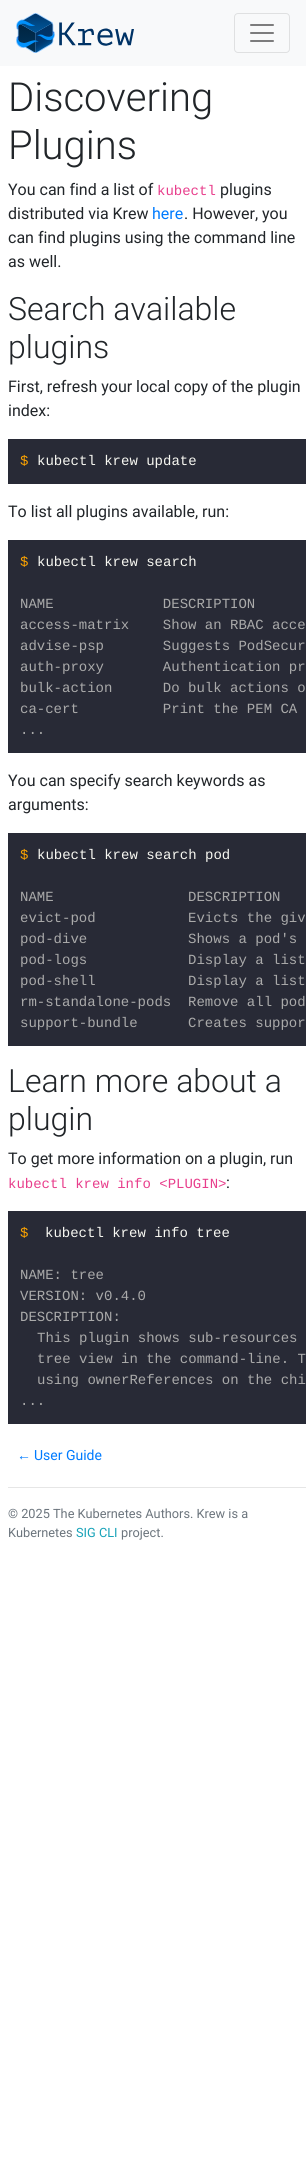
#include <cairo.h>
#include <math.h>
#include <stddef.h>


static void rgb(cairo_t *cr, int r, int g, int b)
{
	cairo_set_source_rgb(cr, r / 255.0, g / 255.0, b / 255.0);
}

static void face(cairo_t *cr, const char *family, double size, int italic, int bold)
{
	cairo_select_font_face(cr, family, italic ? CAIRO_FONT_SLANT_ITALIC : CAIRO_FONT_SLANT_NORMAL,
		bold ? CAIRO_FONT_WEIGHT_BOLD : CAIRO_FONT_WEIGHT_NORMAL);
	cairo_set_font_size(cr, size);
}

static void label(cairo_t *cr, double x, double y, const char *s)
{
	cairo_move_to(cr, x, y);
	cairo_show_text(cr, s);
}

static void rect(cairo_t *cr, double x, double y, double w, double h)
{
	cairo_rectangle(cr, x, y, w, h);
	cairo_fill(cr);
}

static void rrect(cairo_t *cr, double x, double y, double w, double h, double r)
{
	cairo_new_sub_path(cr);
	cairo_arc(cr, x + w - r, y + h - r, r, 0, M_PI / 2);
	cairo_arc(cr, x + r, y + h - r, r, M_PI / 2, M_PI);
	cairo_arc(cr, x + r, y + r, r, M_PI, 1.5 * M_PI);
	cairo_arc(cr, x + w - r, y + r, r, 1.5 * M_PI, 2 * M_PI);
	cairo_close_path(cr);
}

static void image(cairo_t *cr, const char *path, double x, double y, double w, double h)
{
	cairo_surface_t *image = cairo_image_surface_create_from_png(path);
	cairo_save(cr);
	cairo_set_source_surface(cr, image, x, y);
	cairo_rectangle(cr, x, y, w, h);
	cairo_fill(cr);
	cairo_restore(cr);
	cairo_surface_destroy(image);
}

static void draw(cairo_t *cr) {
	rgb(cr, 255, 255, 255);
	cairo_paint(cr);
	rgb(cr, 248, 249, 250);
	rect(cr, 0, 0, 306, 66);
	image(cr, "image0.png", 16, 13, 118, 40);
	rrect(cr, 234.5, 13.5, 55, 39, 3.5);
	rgb(cr, 223, 224, 225);
	cairo_set_line_width(cr, 1);
	cairo_stroke(cr);
	image(cr, "image1.png", 250, 24, 24, 18);
	face(cr, "Roboto Light", 40, 0, 0);
	rgb(cr, 33, 37, 41);
	label(cr, 8, 111, "Discovering");
	label(cr, 8, 159, "Plugins");
	face(cr, "Roboto", 16, 0, 0);
	label(cr, 8, 195, "You can find a list of");
	face(cr, "Liberation Mono", 14, 0, 0);
	rgb(cr, 232, 62, 140);
	label(cr, 157, 195, "kubectl");
	face(cr, "Roboto", 16, 0, 0);
	rgb(cr, 33, 37, 41);
	label(cr, 220, 195, "plugins");
	label(cr, 8, 219, "distributed via Krew");
	rgb(cr, 0, 123, 255);
	label(cr, 152, 219, "here");
	rgb(cr, 33, 37, 41);
	label(cr, 184, 219, ". However, you");
	label(cr, 8, 243, "can find plugins using the command line");
	label(cr, 8, 267, "as well.");
	face(cr, "Roboto Light", 32, 0, 0);
	label(cr, 8, 320, "Search available");
	label(cr, 8, 358, "plugins");
	face(cr, "Roboto", 16, 0, 0);
	label(cr, 8, 392, "First, refresh your local copy of the plugin");
	label(cr, 8, 416, "index:");
	rgb(cr, 40, 42, 54);
	rect(cr, 8, 439, 298, 45);
	face(cr, "Liberation Mono", 14, 0, 0);
	rgb(cr, 255, 165, 0);
	label(cr, 20, 465, "$");
	rgb(cr, 248, 248, 242);
	label(cr, 37, 465, "kubectl krew update");
	face(cr, "Roboto", 16, 0, 0);
	rgb(cr, 33, 37, 41);
	label(cr, 8, 517, "To list all plugins available, run:");
	rgb(cr, 40, 42, 54);
	rect(cr, 8, 540, 298, 213);
	face(cr, "Liberation Mono", 14, 0, 0);
	rgb(cr, 255, 165, 0);
	label(cr, 20, 566, "$");
	rgb(cr, 248, 248, 242);
	label(cr, 37, 566, "kubectl krew search");
	rgb(cr, 170, 170, 170);
	label(cr, 20, 608, "NAME             DESCRIPTION");
	label(cr, 20, 629, "access-matrix    Show an RBAC acce");
	label(cr, 20, 650, "advise-psp       Suggests PodSecur");
	label(cr, 20, 671, "auth-proxy       Authentication pr");
	label(cr, 20, 692, "bulk-action      Do bulk actions o");
	label(cr, 20, 713, "ca-cert          Print the PEM CA");
	label(cr, 20, 734, "...");
	face(cr, "Roboto", 16, 0, 0);
	rgb(cr, 33, 37, 41);
	label(cr, 8, 786, "You can specify search keywords as");
	label(cr, 8, 810, "arguments:");
	rgb(cr, 40, 42, 54);
	rect(cr, 8, 833, 298, 213);
	face(cr, "Liberation Mono", 14, 0, 0);
	rgb(cr, 255, 165, 0);
	label(cr, 20, 859, "$");
	rgb(cr, 248, 248, 242);
	label(cr, 37, 859, "kubectl krew search pod");
	rgb(cr, 170, 170, 170);
	label(cr, 20, 901, "NAME                DESCRIPTION");
	label(cr, 20, 922, "evict-pod           Evicts the giv");
	label(cr, 20, 943, "pod-dive            Shows a pod's");
	label(cr, 20, 964, "pod-logs            Display a list");
	label(cr, 20, 985, "pod-shell           Display a list");
	label(cr, 20, 1006, "rm-standalone-pods  Remove all pod");
	label(cr, 20, 1027, "support-bundle      Creates suppor");
	face(cr, "Roboto Light", 32, 0, 0);
	rgb(cr, 33, 37, 41);
	label(cr, 8, 1092, "Learn more about a");
	label(cr, 8, 1130, "plugin");
	face(cr, "Roboto", 16, 0, 0);
	label(cr, 8, 1164, "To get more information on a plugin, run");
	face(cr, "Liberation Mono", 14, 0, 0);
	rgb(cr, 232, 62, 140);
	label(cr, 8, 1188, "kubectl krew info <PLUGIN>");
	face(cr, "Roboto", 16, 0, 0);
	rgb(cr, 33, 37, 41);
	label(cr, 226, 1188, ":");
	rgb(cr, 40, 42, 54);
	rect(cr, 8, 1211, 298, 213);
	face(cr, "Liberation Mono", 14, 0, 0);
	rgb(cr, 255, 165, 0);
	label(cr, 20, 1237, "$");
	rgb(cr, 248, 248, 242);
	label(cr, 45, 1237, "kubectl krew info tree");
	rgb(cr, 170, 170, 170);
	label(cr, 20, 1279, "NAME: tree");
	label(cr, 20, 1300, "VERSION: v0.4.0");
	label(cr, 20, 1321, "DESCRIPTION:");
	label(cr, 37, 1342, "This plugin shows sub-resources");
	label(cr, 37, 1363, "tree view in the command-line. T");
	label(cr, 37, 1384, "using ownerReferences on the chi");
	label(cr, 20, 1405, "...");
	face(cr, "Liberation Sans", 14, 0, 0);
	rgb(cr, 0, 123, 255);
	label(cr, 17, 1460, "←");
	face(cr, "Roboto", 14, 0, 0);
	label(cr, 34, 1460, "User Guide");
	rgb(cr, 230, 230, 230);
	rect(cr, 8, 1487, 298, 1);
	face(cr, "Roboto", 12.75, 0, 0);
	rgb(cr, 108, 117, 125);
	label(cr, 8, 1518, "© 2025 The Kubernetes Authors. Krew is a");
	label(cr, 8, 1537, "Kubernetes");
	rgb(cr, 23, 162, 184);
	label(cr, 76, 1537, "SIG CLI");
	rgb(cr, 108, 117, 125);
	label(cr, 121, 1537, "project.");
}

int main(void) {
	cairo_surface_t *surface = cairo_image_surface_create(CAIRO_FORMAT_RGB24, 306, 2161);
	cairo_t *cr = cairo_create(surface);
	cairo_font_options_t *options = cairo_font_options_create();
	cairo_font_options_set_hint_metrics(options, CAIRO_HINT_METRICS_OFF);
	cairo_font_options_set_hint_style(options, CAIRO_HINT_STYLE_NONE);
	cairo_set_font_options(cr, options);
	cairo_set_miter_limit(cr, 4);
	draw(cr);
	cairo_surface_write_to_png(surface, "render.png");
	cairo_font_options_destroy(options);
	cairo_destroy(cr);
	cairo_surface_destroy(surface);
	return 0;
}
